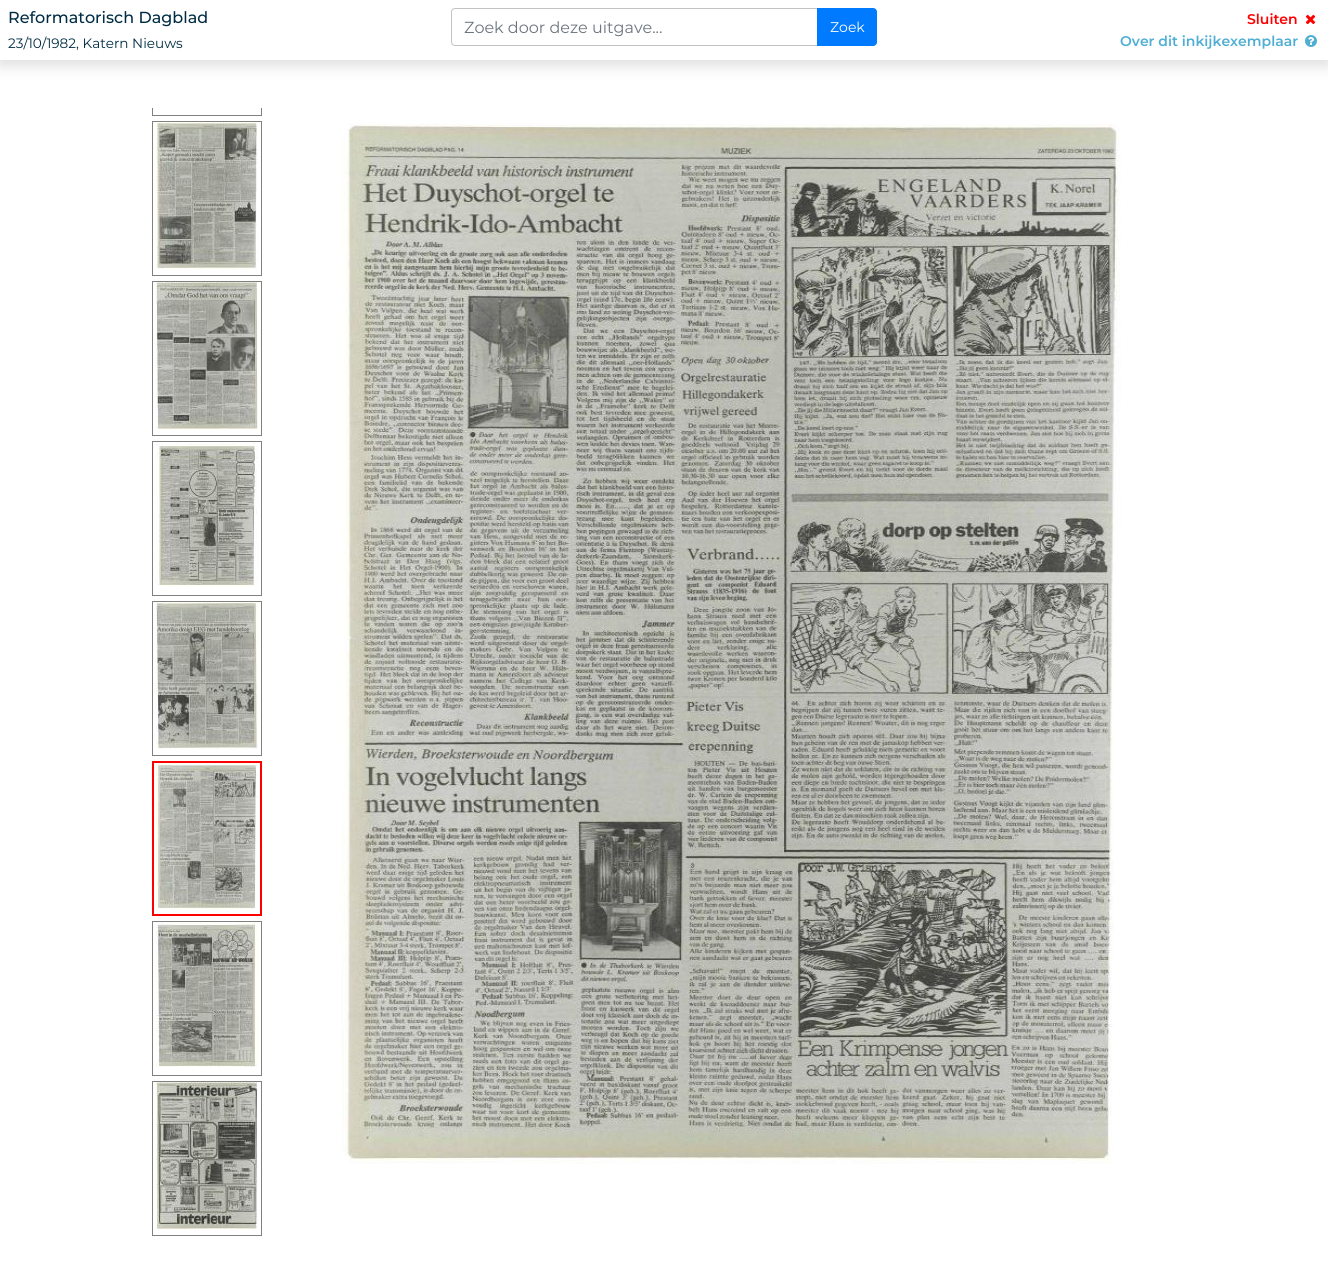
#include <cairo.h>
#include <math.h>
#include <stddef.h>


static void rgb(cairo_t *cr, int r, int g, int b)
{
	cairo_set_source_rgb(cr, r / 255.0, g / 255.0, b / 255.0);
}

static void face(cairo_t *cr, const char *family, double size, int italic, int bold)
{
	cairo_select_font_face(cr, family, italic ? CAIRO_FONT_SLANT_ITALIC : CAIRO_FONT_SLANT_NORMAL,
		bold ? CAIRO_FONT_WEIGHT_BOLD : CAIRO_FONT_WEIGHT_NORMAL);
	cairo_set_font_size(cr, size);
}

static void label(cairo_t *cr, double x, double y, const char *s)
{
	cairo_move_to(cr, x, y);
	cairo_show_text(cr, s);
}

static void rrect(cairo_t *cr, double x, double y, double w, double h, double r)
{
	cairo_new_sub_path(cr);
	cairo_arc(cr, x + w - r, y + h - r, r, 0, M_PI / 2);
	cairo_arc(cr, x + r, y + h - r, r, M_PI / 2, M_PI);
	cairo_arc(cr, x + r, y + r, r, M_PI, 1.5 * M_PI);
	cairo_arc(cr, x + w - r, y + r, r, 1.5 * M_PI, 2 * M_PI);
	cairo_close_path(cr);
}

static void soft_shadow(cairo_t *cr, double x, double y, double w, double h, double r, double blur, double alpha)
{
	cairo_push_group_with_content(cr, CAIRO_CONTENT_ALPHA);
	cairo_set_operator(cr, CAIRO_OPERATOR_SOURCE);
	for (int i = 15; i >= -15 && fmin(w, h) + blur * i / 3 > 0; i -= 2) {
		double e = blur * i / 6;
		cairo_set_source_rgba(cr, 0, 0, 0, alpha * erfc((i - 1) / 8.5) / 2);
		rrect(cr, x - e, y - e, w + 2 * e, h + 2 * e, fmax(0, fmin(r + e + blur * .6, fmin(w, h) / 2 + e)));
		cairo_fill(cr);
	}
	cairo_pattern_t *soft = cairo_pop_group(cr);
	cairo_mask(cr, soft);
	cairo_pattern_destroy(soft);
}

static void image(cairo_t *cr, const char *path, double x, double y, double w, double h)
{
	cairo_surface_t *image = cairo_image_surface_create_from_png(path);
	cairo_save(cr);
	cairo_set_source_surface(cr, image, x, y);
	cairo_rectangle(cr, x, y, w, h);
	cairo_fill(cr);
	cairo_restore(cr);
	cairo_surface_destroy(image);
}

static void draw(cairo_t *cr) {
	rgb(cr, 255, 255, 255);
	cairo_paint(cr);
	cairo_save(cr);
	cairo_rectangle(cr, 152, 108, 140, 1144);
	cairo_clip(cr);
	cairo_rectangle(cr, 152.5, -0.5, 109, 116);
	rgb(cr, 128, 128, 128);
	cairo_set_line_width(cr, 1);
	cairo_stroke(cr);
	cairo_restore(cr);
	cairo_rectangle(cr, 152.5, 121.5, 109, 154);
	rgb(cr, 128, 128, 128);
	cairo_set_line_width(cr, 1);
	cairo_stroke(cr);
	image(cr, "image0.png", 156, 122, 102, 147);
	cairo_rectangle(cr, 152.5, 281.5, 109, 154);
	cairo_stroke(cr);
	image(cr, "image1.png", 156, 282, 102, 147);
	cairo_rectangle(cr, 152.5, 441.5, 109, 154);
	cairo_stroke(cr);
	image(cr, "image2.png", 156, 442, 102, 145);
	cairo_rectangle(cr, 152.5, 601.5, 109, 154);
	cairo_stroke(cr);
	image(cr, "image3.png", 156, 602, 102, 147);
	cairo_rectangle(cr, 153, 762, 108, 153);
	rgb(cr, 255, 0, 0);
	cairo_set_line_width(cr, 2);
	cairo_stroke(cr);
	image(cr, "image4.png", 156, 763, 102, 147);
	cairo_rectangle(cr, 152.5, 921.5, 109, 154);
	rgb(cr, 128, 128, 128);
	cairo_set_line_width(cr, 1);
	cairo_stroke(cr);
	image(cr, "image5.png", 156, 922, 102, 145);
	cairo_rectangle(cr, 152.5, 1081.5, 109, 154);
	cairo_stroke(cr);
	image(cr, "image6.png", 156, 1082, 102, 147);
	image(cr, "image7.png", 341, 124, 780, 1040);
	cairo_save(cr);
	cairo_rectangle(cr, 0, 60, 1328, 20);
	cairo_clip(cr);
	rgb(cr, 220, 220, 220);
	soft_shadow(cr, 0, 5, 1328, 60, 0, 7.5, 1);
	cairo_restore(cr);
	face(cr, "Montserrat Medium", 16, 0, 0);
	rgb(cr, 0, 44, 67);
	label(cr, 8, 23, "Reformatorisch Dagblad");
	face(cr, "Montserrat", 13.6, 0, 0);
	label(cr, 8, 48, "23/10/1982, Katern Nieuws");
	cairo_new_path(cr);
	cairo_move_to(cr, 455, 8.5);
	cairo_line_to(cr, 817.5, 8.5);
	cairo_line_to(cr, 817.5, 45.5);
	cairo_line_to(cr, 455, 45.5);
	cairo_curve_to(cr, 453, 45.5, 451.5, 44, 451.5, 42);
	cairo_line_to(cr, 451.5, 12);
	cairo_curve_to(cr, 451.5, 10, 453, 8.5, 455, 8.5);
	cairo_close_path(cr);
	rgb(cr, 195, 195, 195);
	cairo_stroke(cr);
	face(cr, "Montserrat", 16, 0, 0);
	rgb(cr, 108, 117, 125);
	label(cr, 464, 33, "Zoek door deze uitgave...");
	rgb(cr, 0, 123, 255);
	cairo_new_path(cr);
	cairo_move_to(cr, 817.5, 8.5);
	cairo_line_to(cr, 873, 8.5);
	cairo_curve_to(cr, 875, 8.5, 876.5, 10, 876.5, 12);
	cairo_line_to(cr, 876.5, 42);
	cairo_curve_to(cr, 876.5, 44, 875, 45.5, 873, 45.5);
	cairo_line_to(cr, 817.5, 45.5);
	cairo_close_path(cr);
	cairo_fill_preserve(cr);
	cairo_stroke(cr);
	face(cr, "Montserrat", 14, 0, 0);
	rgb(cr, 255, 255, 255);
	label(cr, 830, 32, "Zoek");
	face(cr, "Montserrat SemiBold", 14, 0, 0);
	rgb(cr, 255, 0, 0);
	label(cr, 1247, 24, "Sluiten");
	image(cr, "image8.png", 1305, 14, 11, 11);
	rgb(cr, 79, 174, 211);
	label(cr, 1120, 46, "Over dit inkijkexemplaar");
	image(cr, "image9.png", 1305, 35, 12, 12);
}

int main(void) {
	cairo_surface_t *surface = cairo_image_surface_create(CAIRO_FORMAT_RGB24, 1328, 1272);
	cairo_t *cr = cairo_create(surface);
	cairo_font_options_t *options = cairo_font_options_create();
	cairo_font_options_set_hint_metrics(options, CAIRO_HINT_METRICS_OFF);
	cairo_font_options_set_hint_style(options, CAIRO_HINT_STYLE_NONE);
	cairo_set_font_options(cr, options);
	cairo_set_miter_limit(cr, 4);
	draw(cr);
	cairo_surface_write_to_png(surface, "render.png");
	cairo_font_options_destroy(options);
	cairo_destroy(cr);
	cairo_surface_destroy(surface);
	return 0;
}
